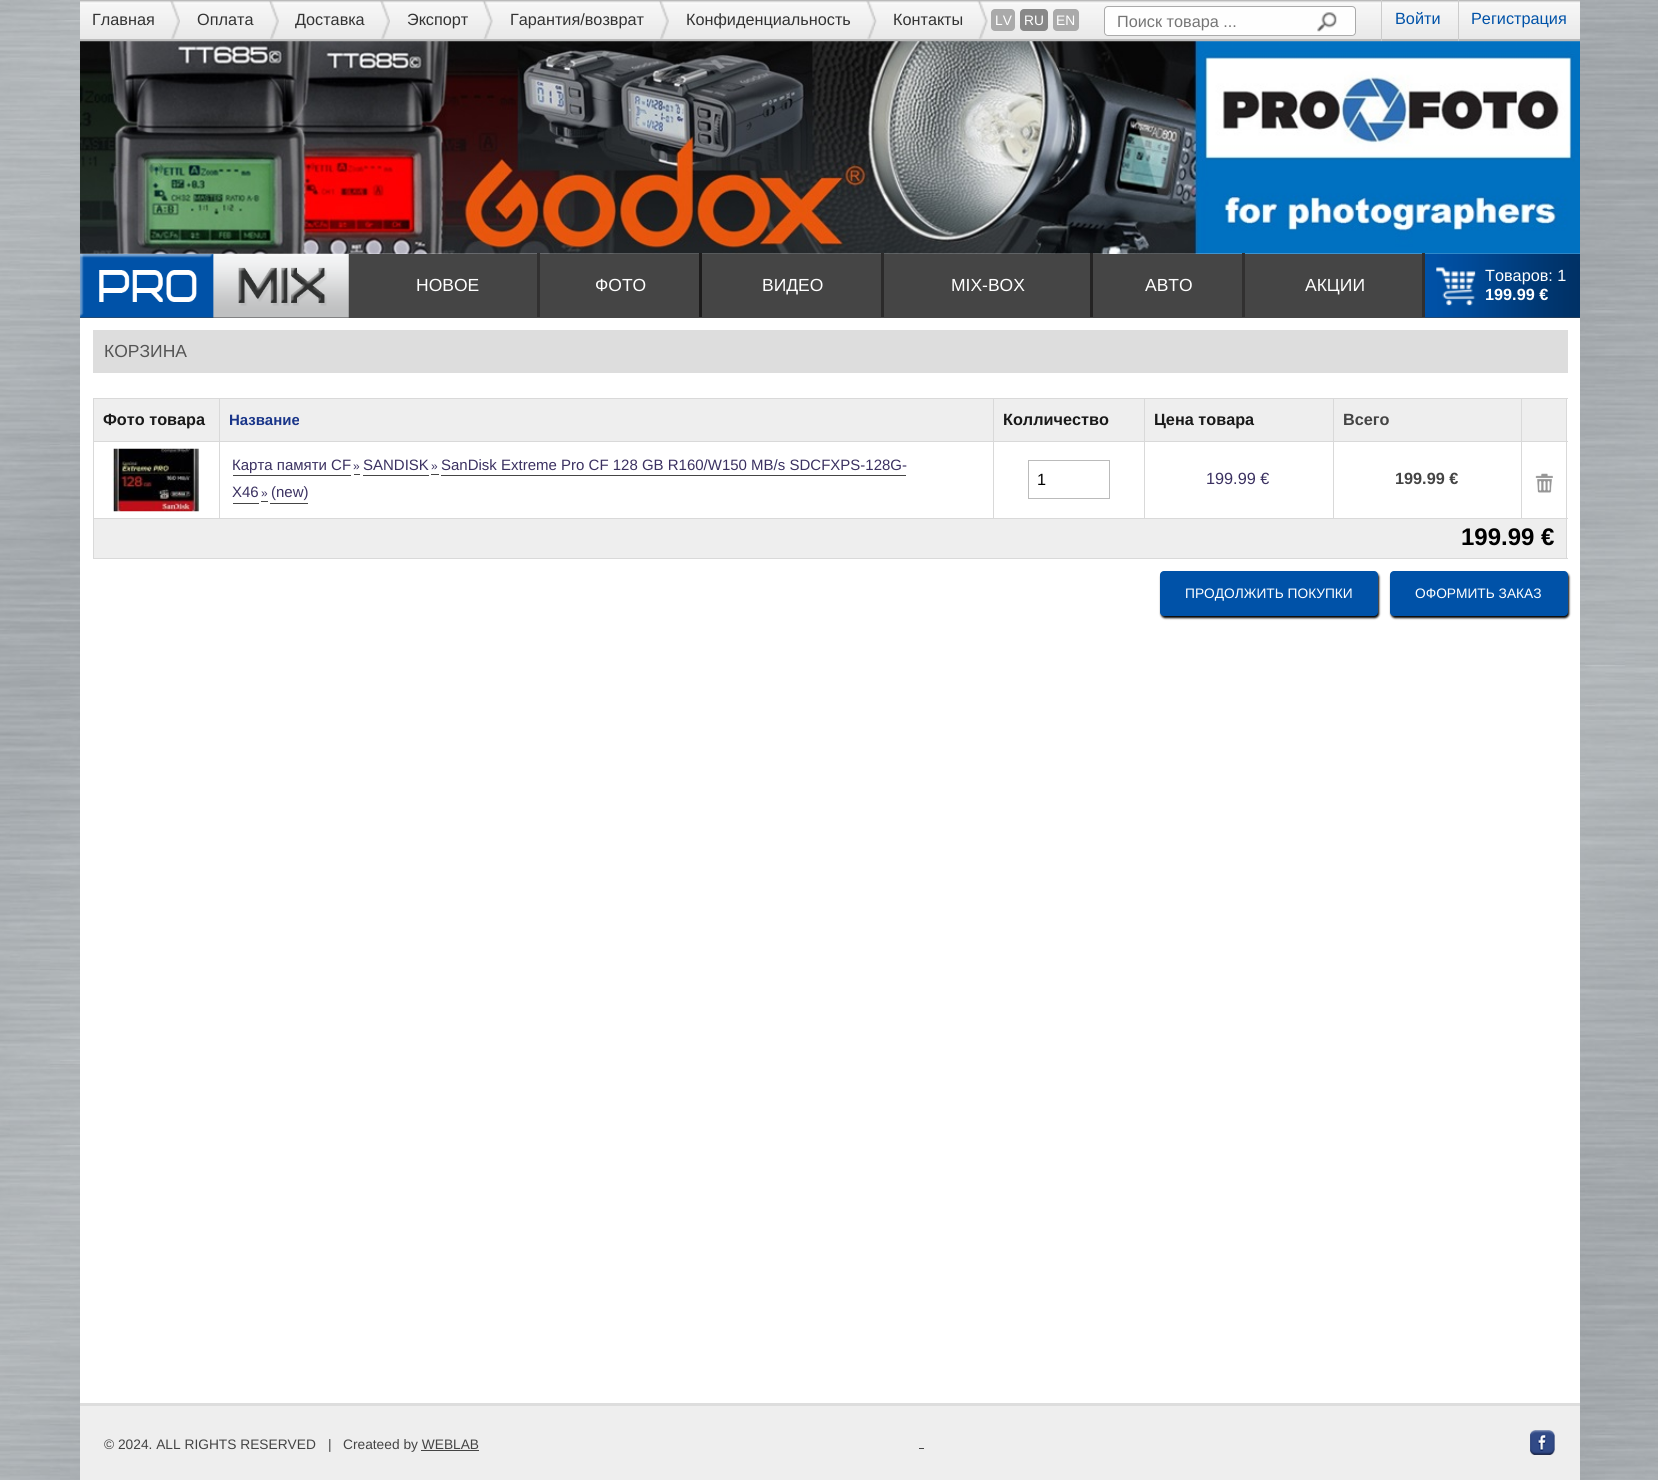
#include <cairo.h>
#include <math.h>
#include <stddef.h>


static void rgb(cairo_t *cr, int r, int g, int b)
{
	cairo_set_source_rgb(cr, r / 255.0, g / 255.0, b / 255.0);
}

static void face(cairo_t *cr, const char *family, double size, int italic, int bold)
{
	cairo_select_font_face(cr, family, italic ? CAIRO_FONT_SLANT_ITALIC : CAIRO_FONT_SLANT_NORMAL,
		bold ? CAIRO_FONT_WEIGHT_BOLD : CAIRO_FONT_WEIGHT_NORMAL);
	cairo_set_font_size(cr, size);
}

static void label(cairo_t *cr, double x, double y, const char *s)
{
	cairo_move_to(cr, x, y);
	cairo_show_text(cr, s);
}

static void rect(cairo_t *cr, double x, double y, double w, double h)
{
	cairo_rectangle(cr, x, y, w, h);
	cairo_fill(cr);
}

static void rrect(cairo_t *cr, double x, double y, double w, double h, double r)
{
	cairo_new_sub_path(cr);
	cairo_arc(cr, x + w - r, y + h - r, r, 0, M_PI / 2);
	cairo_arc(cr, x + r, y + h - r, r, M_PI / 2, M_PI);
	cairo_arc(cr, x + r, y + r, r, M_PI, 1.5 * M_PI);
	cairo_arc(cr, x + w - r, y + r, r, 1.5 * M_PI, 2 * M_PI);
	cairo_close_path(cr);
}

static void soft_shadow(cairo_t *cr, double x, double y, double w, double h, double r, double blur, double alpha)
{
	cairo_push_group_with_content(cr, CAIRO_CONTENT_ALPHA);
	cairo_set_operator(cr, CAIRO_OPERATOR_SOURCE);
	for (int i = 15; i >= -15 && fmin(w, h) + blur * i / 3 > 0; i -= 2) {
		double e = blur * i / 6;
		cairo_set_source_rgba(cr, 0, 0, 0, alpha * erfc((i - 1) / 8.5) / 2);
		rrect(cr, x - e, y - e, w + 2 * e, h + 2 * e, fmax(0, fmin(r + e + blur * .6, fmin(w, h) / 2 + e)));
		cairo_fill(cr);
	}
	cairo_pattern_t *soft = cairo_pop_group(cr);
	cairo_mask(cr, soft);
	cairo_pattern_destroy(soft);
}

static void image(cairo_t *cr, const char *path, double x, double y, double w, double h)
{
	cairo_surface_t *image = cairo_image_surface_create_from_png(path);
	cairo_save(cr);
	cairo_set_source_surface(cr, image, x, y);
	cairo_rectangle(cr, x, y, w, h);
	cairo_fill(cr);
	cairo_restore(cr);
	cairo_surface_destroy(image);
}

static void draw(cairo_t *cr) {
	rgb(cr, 255, 255, 255);
	cairo_paint(cr);
	image(cr, "image0.png", 0, 0, 1658, 1480);
	rgb(cr, 255, 255, 255);
	rect(cr, 80, 253, 1500, 1150);
	image(cr, "image1.png", 80, 0, 1500, 39);
	rgb(cr, 186, 186, 186);
	rect(cr, 80, 39, 1500, 3);
	image(cr, "image2.png", 170, 1, 10, 38);
	face(cr, "Liberation Sans", 16.25, 0, 0);
	rgb(cr, 51, 51, 51);
	label(cr, 92, 25, "Главная");
	image(cr, "image3.png", 269, 1, 10, 38);
	label(cr, 197, 25, "Оплата");
	image(cr, "image2.png", 380, 1, 10, 38);
	label(cr, 295, 25, "Доставка");
	image(cr, "image4.png", 482, 1, 11, 38);
	label(cr, 407, 25, "Экспорт");
	image(cr, "image3.png", 659, 1, 10, 38);
	label(cr, 510, 25, "Гарантия/возврат");
	image(cr, "image5.png", 866, 1, 11, 38);
	label(cr, 686, 25, "Конфиденциальность");
	image(cr, "image6.png", 977, 1, 11, 38);
	label(cr, 893, 25, "Контакты");
	rgb(cr, 170, 170, 170);
	rrect(cr, 991, 9, 24, 22, 4);
	cairo_fill(cr);
	face(cr, "Liberation Sans", 13.75, 0, 0);
	rgb(cr, 255, 255, 255);
	label(cr, 995, 25, "LV");
	rgb(cr, 136, 136, 136);
	rrect(cr, 1020, 9, 28, 22, 4);
	cairo_fill(cr);
	rgb(cr, 255, 255, 255);
	label(cr, 1024, 25, "RU");
	rgb(cr, 170, 170, 170);
	rrect(cr, 1053, 9, 26, 22, 4);
	cairo_fill(cr);
	rgb(cr, 255, 255, 255);
	label(cr, 1056, 25, "EN");
	rgb(cr, 254, 254, 254);
	rrect(cr, 1104.5, 6.5, 251, 29, 3.5);
	cairo_fill_preserve(cr);
	rgb(cr, 170, 170, 170);
	cairo_set_line_width(cr, 1);
	cairo_stroke(cr);
	rgb(cr, 254, 254, 254);
	rrect(cr, 1105, 8, 181, 27, 4);
	cairo_fill(cr);
	face(cr, "Liberation Sans", 16.25, 0, 0);
	rgb(cr, 117, 117, 117);
	label(cr, 1117, 27, "Поиск товара ...");
	rgb(cr, 254, 254, 254);
	rrect(cr, 1299, 8, 56, 27, 4);
	cairo_fill(cr);
	image(cr, "image7.png", 1317, 12, 20, 20);
	rgb(cr, 204, 204, 204);
	rect(cr, 1381, 0, 1, 44);
	rgb(cr, 0, 82, 168);
	label(cr, 1395, 24, "Войти");
	rgb(cr, 204, 204, 204);
	rect(cr, 1458, 0, 1, 44);
	rgb(cr, 0, 82, 168);
	label(cr, 1471, 24, "Регистрация");
	rgb(cr, 69, 69, 69);
	rect(cr, 80, 254, 1500, 64);
	image(cr, "image9.png", 80, 253, 269, 65);
	image(cr, "image10.png", 1425, 253, 155, 65);
	image(cr, "image8.png", 80, 41, 1500, 213);
	rgb(cr, 49, 48, 48);
	rect(cr, 537, 253, 3, 64);
	face(cr, "Liberation Sans", 17.5, 0, 0);
	rgb(cr, 255, 255, 255);
	label(cr, 416, 291, "НОВОЕ");
	rgb(cr, 29, 28, 28);
	rect(cr, 699, 253, 3, 64);
	rgb(cr, 255, 255, 255);
	label(cr, 595, 291, "ФОТО");
	rgb(cr, 43, 42, 42);
	rect(cr, 881, 253, 3, 64);
	rgb(cr, 255, 255, 255);
	label(cr, 762, 291, "ВИДЕО");
	rgb(cr, 36, 35, 35);
	rect(cr, 1090, 253, 3, 64);
	rgb(cr, 255, 255, 255);
	label(cr, 951, 291, "MIX-BOX");
	rgb(cr, 49, 48, 48);
	rect(cr, 1242, 253, 3, 64);
	rgb(cr, 255, 255, 255);
	label(cr, 1145, 291, "АВТО");
	rgb(cr, 49, 48, 48);
	rect(cr, 1422, 253, 3, 64);
	rgb(cr, 255, 255, 255);
	label(cr, 1305, 291, "АКЦИИ");
	face(cr, "Liberation Sans", 16.25, 0, 0);
	label(cr, 1485, 281, "Товаров: 1");
	face(cr, "Liberation Sans", 16.25, 0, 1);
	label(cr, 1485, 300, "199.99 €");
	rgb(cr, 221, 221, 221);
	rect(cr, 93, 330, 1475, 43);
	face(cr, "Liberation Sans", 17.5, 0, 0);
	rgb(cr, 85, 85, 85);
	label(cr, 104, 357, "КОРЗИНА");
	rgb(cr, 238, 238, 238);
	rect(cr, 94, 399, 125, 42);
	rgb(cr, 217, 217, 217);
	rect(cr, 1521, 398, 47, 1);
	rect(cr, 1521, 441, 47, 1);
	rect(cr, 93, 518, 1475, 1);
	rect(cr, 1521, 441, 1, 78);
	rect(cr, 1333, 441, 190, 1);
	rect(cr, 1521, 398, 1, 45);
	rect(cr, 1333, 398, 190, 1);
	rect(cr, 1333, 441, 1, 78);
	rect(cr, 1144, 441, 190, 1);
	rect(cr, 1333, 398, 1, 45);
	rect(cr, 1144, 398, 190, 1);
	rect(cr, 1144, 441, 1, 78);
	rect(cr, 993, 441, 152, 1);
	rect(cr, 1144, 398, 1, 45);
	rect(cr, 993, 398, 152, 1);
	rect(cr, 993, 441, 1, 78);
	rect(cr, 219, 441, 775, 1);
	rect(cr, 993, 398, 1, 45);
	rect(cr, 219, 398, 775, 1);
	rect(cr, 219, 441, 1, 78);
	rect(cr, 93, 441, 127, 1);
	rect(cr, 219, 398, 1, 45);
	rect(cr, 93, 398, 127, 1);
	rect(cr, 1566, 518, 1, 41);
	rect(cr, 93, 558, 1475, 1);
	rect(cr, 93, 518, 1, 41);
	rect(cr, 93, 441, 1, 78);
	rect(cr, 93, 398, 1, 45);
	face(cr, "Liberation Sans", 16.25, 0, 1);
	rgb(cr, 25, 25, 25);
	label(cr, 103, 425, "Фото товара");
	rgb(cr, 238, 238, 238);
	rect(cr, 220, 399, 773, 42);
	face(cr, "Liberation Sans", 15, 0, 1);
	rgb(cr, 25, 53, 137);
	label(cr, 229, 425, "Название");
	rgb(cr, 238, 238, 238);
	rect(cr, 994, 399, 150, 42);
	face(cr, "Liberation Sans", 16.25, 0, 1);
	rgb(cr, 25, 25, 25);
	label(cr, 1003, 425, "Колличество");
	rgb(cr, 238, 238, 238);
	rect(cr, 1145, 399, 188, 42);
	rgb(cr, 25, 25, 25);
	label(cr, 1154, 425, "Цена товара");
	rgb(cr, 238, 238, 238);
	rect(cr, 1334, 399, 187, 42);
	rgb(cr, 68, 68, 68);
	label(cr, 1343, 425, "Всего");
	rgb(cr, 238, 238, 238);
	rect(cr, 1522, 399, 44, 42);
	rgb(cr, 217, 217, 217);
	rect(cr, 1566, 441, 1, 78);
	rect(cr, 1566, 398, 1, 45);
	image(cr, "image11.png", 112, 448, 88, 64);
	face(cr, "Liberation Sans", 15, 0, 0);
	rgb(cr, 59, 49, 97);
	label(cr, 232, 470, "Карта памяти CF");
	rgb(cr, 69, 69, 69);
	rect(cr, 233, 475, 118, 1);
	face(cr, "Liberation Sans", 12, 0, 0);
	rgb(cr, 59, 49, 97);
	label(cr, 353, 470, "»");
	rgb(cr, 69, 69, 69);
	rect(cr, 354, 474, 6, 1);
	face(cr, "Liberation Sans", 15, 0, 0);
	rgb(cr, 59, 49, 97);
	label(cr, 363, 470, "SANDISK");
	face(cr, "Liberation Sans", 12, 0, 0);
	label(cr, 431, 470, "»");
	rgb(cr, 69, 69, 69);
	rect(cr, 363, 475, 66, 1);
	rect(cr, 431, 474, 8, 1);
	rect(cr, 441, 475, 465, 1);
	face(cr, "Liberation Sans", 15, 0, 0);
	rgb(cr, 59, 49, 97);
	label(cr, 441, 470, "SanDisk Extreme Pro CF 128 GB R160/W150 MB/s SDCFXPS-128G-");
	label(cr, 232, 497, "X46");
	face(cr, "Liberation Sans", 12, 0, 0);
	label(cr, 261, 497, "»");
	rgb(cr, 69, 69, 69);
	rect(cr, 233, 503, 26, 1);
	rect(cr, 261, 501, 7, 1);
	face(cr, "Liberation Sans", 15, 0, 0);
	rgb(cr, 59, 49, 97);
	label(cr, 271, 497, "(new)");
	rgb(cr, 69, 69, 69);
	rect(cr, 270, 503, 38, 1);
	cairo_rectangle(cr, 1028.5, 460.5, 81, 38);
	rgb(cr, 187, 187, 187);
	cairo_stroke(cr);
	face(cr, "Liberation Sans", 16.25, 0, 0);
	rgb(cr, 0, 0, 0);
	label(cr, 1037, 485, "1");
	rgb(cr, 59, 49, 97);
	label(cr, 1206, 484, "199.99 €");
	face(cr, "Liberation Sans", 16.25, 0, 1);
	rgb(cr, 68, 68, 68);
	label(cr, 1395, 484, "199.99 €");
	image(cr, "image12.png", 1535, 473, 18, 20);
	rgb(cr, 238, 238, 238);
	rect(cr, 94, 519, 1472, 39);
	face(cr, "Liberation Sans", 24, 0, 1);
	rgb(cr, 0, 0, 0);
	label(cr, 1461, 545, "199.99 €");
	rgb(cr, 0, 0, 0);
	soft_shadow(cr, 1161, 573, 218, 45, 4, 1, 1);
	rgb(cr, 0, 82, 168);
	rrect(cr, 1160, 571, 218, 45, 4);
	cairo_fill(cr);
	face(cr, "Liberation Sans", 13.75, 0, 0);
	rgb(cr, 255, 255, 255);
	label(cr, 1185, 598, "ПРОДОЛЖИТЬ ПОКУПКИ");
	rgb(cr, 0, 0, 0);
	soft_shadow(cr, 1391, 573, 178, 45, 4, 1, 1);
	rgb(cr, 0, 82, 168);
	rrect(cr, 1390, 571, 178, 45, 4);
	cairo_fill(cr);
	rgb(cr, 255, 255, 255);
	label(cr, 1415, 598, "ОФОРМИТЬ ЗАКАЗ");
	rgb(cr, 238, 238, 238);
	rect(cr, 80, 1406, 1500, 74);
	rgb(cr, 221, 221, 221);
	rect(cr, 80, 1403, 1500, 3);
	rgb(cr, 68, 68, 68);
	label(cr, 104, 1449, "© 2024. ALL RIGHTS RESERVED");
	label(cr, 328, 1449, "|");
	label(cr, 343, 1449, "Createed by WEBLAB");
	rect(cr, 421, 1450, 58, 1);
	rect(cr, 919, 1448, 5, 1);
	image(cr, "image13.png", 1530, 1430, 25, 25);
}

int main(void) {
	cairo_surface_t *surface = cairo_image_surface_create(CAIRO_FORMAT_RGB24, 1658, 1480);
	cairo_t *cr = cairo_create(surface);
	cairo_font_options_t *options = cairo_font_options_create();
	cairo_font_options_set_hint_metrics(options, CAIRO_HINT_METRICS_OFF);
	cairo_font_options_set_hint_style(options, CAIRO_HINT_STYLE_NONE);
	cairo_set_font_options(cr, options);
	cairo_set_miter_limit(cr, 4);
	draw(cr);
	cairo_surface_write_to_png(surface, "render.png");
	cairo_font_options_destroy(options);
	cairo_destroy(cr);
	cairo_surface_destroy(surface);
	return 0;
}
